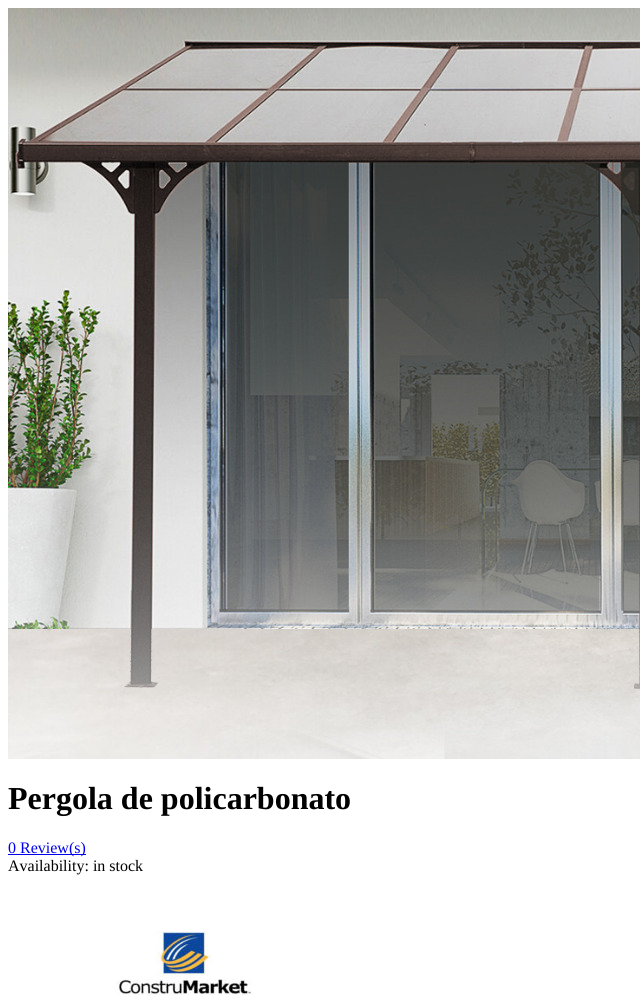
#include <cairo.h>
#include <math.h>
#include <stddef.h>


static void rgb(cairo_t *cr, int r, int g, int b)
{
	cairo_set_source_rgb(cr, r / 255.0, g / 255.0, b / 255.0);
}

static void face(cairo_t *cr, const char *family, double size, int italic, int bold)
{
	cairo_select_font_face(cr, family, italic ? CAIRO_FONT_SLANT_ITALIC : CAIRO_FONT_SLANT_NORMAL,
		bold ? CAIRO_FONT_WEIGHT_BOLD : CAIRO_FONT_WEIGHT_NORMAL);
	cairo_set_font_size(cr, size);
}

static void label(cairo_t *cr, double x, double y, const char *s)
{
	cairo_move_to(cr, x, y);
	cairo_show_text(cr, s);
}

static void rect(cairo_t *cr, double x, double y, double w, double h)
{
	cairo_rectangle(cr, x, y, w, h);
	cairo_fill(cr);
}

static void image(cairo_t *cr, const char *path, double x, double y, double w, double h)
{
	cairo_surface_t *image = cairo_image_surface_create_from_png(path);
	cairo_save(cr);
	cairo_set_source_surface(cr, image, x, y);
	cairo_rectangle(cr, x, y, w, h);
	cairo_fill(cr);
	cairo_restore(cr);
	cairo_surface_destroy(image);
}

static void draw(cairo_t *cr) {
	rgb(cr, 255, 255, 255);
	cairo_paint(cr);
	image(cr, "image0.png", 8, 8, 632, 751);
	face(cr, "Liberation Serif", 32, 0, 1);
	rgb(cr, 0, 0, 0);
	label(cr, 8, 809, "Pergola de policarbonato");
	rgb(cr, 0, 0, 238);
	rect(cr, 8, 854, 78, 1);
	face(cr, "Liberation Serif", 16, 0, 0);
	label(cr, 8, 853, "0 Review(s)");
	rgb(cr, 0, 0, 0);
	label(cr, 8, 871, "Availability: in stock");
	image(cr, "image1.png", 116, 931, 136, 64);
}

int main(void) {
	cairo_surface_t *surface = cairo_image_surface_create(CAIRO_FORMAT_RGB24, 640, 999);
	cairo_t *cr = cairo_create(surface);
	cairo_font_options_t *options = cairo_font_options_create();
	cairo_font_options_set_hint_metrics(options, CAIRO_HINT_METRICS_OFF);
	cairo_font_options_set_hint_style(options, CAIRO_HINT_STYLE_NONE);
	cairo_set_font_options(cr, options);
	cairo_set_miter_limit(cr, 4);
	draw(cr);
	cairo_surface_write_to_png(surface, "render.png");
	cairo_font_options_destroy(options);
	cairo_destroy(cr);
	cairo_surface_destroy(surface);
	return 0;
}
